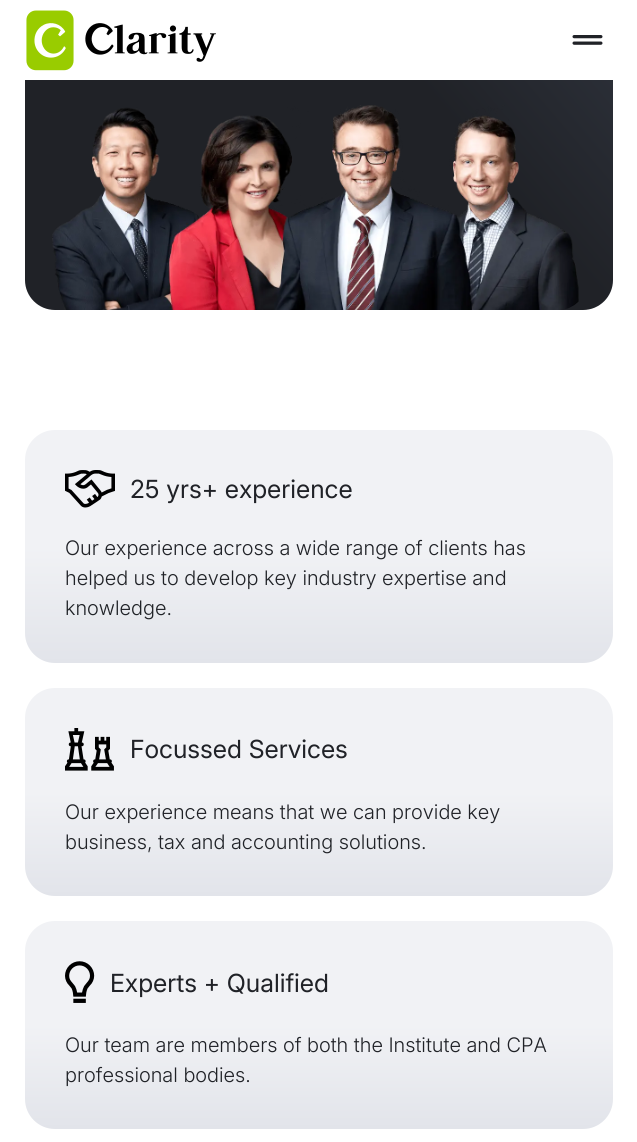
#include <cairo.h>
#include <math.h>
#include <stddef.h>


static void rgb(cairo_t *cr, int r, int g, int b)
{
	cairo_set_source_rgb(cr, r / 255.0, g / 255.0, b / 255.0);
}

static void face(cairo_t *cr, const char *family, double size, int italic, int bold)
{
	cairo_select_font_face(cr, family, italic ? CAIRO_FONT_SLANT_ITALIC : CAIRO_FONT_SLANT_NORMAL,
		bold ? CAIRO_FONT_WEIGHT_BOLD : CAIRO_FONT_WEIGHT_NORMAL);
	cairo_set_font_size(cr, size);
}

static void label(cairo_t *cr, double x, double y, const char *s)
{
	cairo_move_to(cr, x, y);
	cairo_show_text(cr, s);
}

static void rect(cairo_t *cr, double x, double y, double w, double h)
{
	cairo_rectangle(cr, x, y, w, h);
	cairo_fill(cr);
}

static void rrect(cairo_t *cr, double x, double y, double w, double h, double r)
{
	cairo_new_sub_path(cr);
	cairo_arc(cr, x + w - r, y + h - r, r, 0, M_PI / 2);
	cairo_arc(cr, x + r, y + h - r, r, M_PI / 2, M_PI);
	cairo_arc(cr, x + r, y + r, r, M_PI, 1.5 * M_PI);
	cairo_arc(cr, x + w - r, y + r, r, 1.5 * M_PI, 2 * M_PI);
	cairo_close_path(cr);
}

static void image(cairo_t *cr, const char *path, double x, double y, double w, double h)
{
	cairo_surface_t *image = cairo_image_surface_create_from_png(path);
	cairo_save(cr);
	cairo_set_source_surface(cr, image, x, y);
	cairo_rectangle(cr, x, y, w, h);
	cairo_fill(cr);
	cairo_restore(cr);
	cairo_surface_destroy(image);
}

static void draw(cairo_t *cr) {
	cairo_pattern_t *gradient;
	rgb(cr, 255, 255, 255);
	cairo_paint(cr);
	gradient = cairo_pattern_create_linear(-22, 254, 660, -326);
	cairo_pattern_add_color_stop_rgba(gradient, 0, 0.125, 0.133, 0.153, 1);
	cairo_pattern_add_color_stop_rgba(gradient, 0.5, 0.125, 0.133, 0.153, 1);
	cairo_pattern_add_color_stop_rgba(gradient, 1, 0.247, 0.275, 0.333, 1);
	cairo_set_source(cr, gradient);
	cairo_pattern_destroy(gradient);
	rrect(cr, 25, -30, 588, 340, 30);
	cairo_fill(cr);
	rgb(cr, 255, 255, 255);
	rect(cr, 25, 0, 588, 80);
	image(cr, "image0.png", 26, 10, 48, 61);
	image(cr, "image1.png", 85, 23, 131, 39);
	image(cr, "image2.png", 572, 35, 31, 10);
	image(cr, "image3.png", 52, 105, 527, 205);
	gradient = cairo_pattern_create_linear(319, 430, 319, 663);
	cairo_pattern_add_color_stop_rgba(gradient, 0, 0.945, 0.949, 0.961, 1);
	cairo_pattern_add_color_stop_rgba(gradient, 0.5, 0.945, 0.949, 0.961, 1);
	cairo_pattern_add_color_stop_rgba(gradient, 1, 0.886, 0.894, 0.918, 1);
	cairo_set_source(cr, gradient);
	cairo_pattern_destroy(gradient);
	rrect(cr, 25, 430, 588, 233, 30);
	cairo_fill(cr);
	image(cr, "image4.png", 65, 470, 50, 38);
	face(cr, "Inter", 25, 0, 0);
	rgb(cr, 32, 34, 39);
	label(cr, 130, 498, "25 yrs+ experience");
	face(cr, "Inter Light", 20, 0, 0);
	label(cr, 65, 555, "Our experience across a wide range of clients has");
	label(cr, 65, 585, "helped us to develop key industry expertise and");
	label(cr, 65, 615, "knowledge.");
	gradient = cairo_pattern_create_linear(319, 688, 319, 896);
	cairo_pattern_add_color_stop_rgba(gradient, 0, 0.945, 0.949, 0.961, 1);
	cairo_pattern_add_color_stop_rgba(gradient, 0.5, 0.945, 0.949, 0.961, 1);
	cairo_pattern_add_color_stop_rgba(gradient, 1, 0.886, 0.894, 0.918, 1);
	cairo_set_source(cr, gradient);
	cairo_pattern_destroy(gradient);
	rrect(cr, 25, 688, 588, 208, 30);
	cairo_fill(cr);
	image(cr, "image5.png", 65, 728, 49, 43);
	face(cr, "Inter", 25, 0, 0);
	rgb(cr, 32, 34, 39);
	label(cr, 130, 758, "Focussed Services");
	face(cr, "Inter Light", 20, 0, 0);
	label(cr, 65, 819, "Our experience means that we can provide key");
	label(cr, 65, 849, "business, tax and accounting solutions.");
	gradient = cairo_pattern_create_linear(319, 921, 319, 1129);
	cairo_pattern_add_color_stop_rgba(gradient, 0, 0.945, 0.949, 0.961, 1);
	cairo_pattern_add_color_stop_rgba(gradient, 0.5, 0.945, 0.949, 0.961, 1);
	cairo_pattern_add_color_stop_rgba(gradient, 1, 0.886, 0.894, 0.918, 1);
	cairo_set_source(cr, gradient);
	cairo_pattern_destroy(gradient);
	rrect(cr, 25, 921, 588, 208, 30);
	cairo_fill(cr);
	image(cr, "image6.png", 65, 961, 30, 42);
	face(cr, "Inter", 25, 0, 0);
	rgb(cr, 32, 34, 39);
	label(cr, 110, 992, "Experts + Qualified");
	face(cr, "Inter Light", 20, 0, 0);
	label(cr, 65, 1052, "Our team are members of both the Institute and CPA");
	label(cr, 65, 1082, "professional bodies.");
}

int main(void) {
	cairo_surface_t *surface = cairo_image_surface_create(CAIRO_FORMAT_RGB24, 637, 1142);
	cairo_t *cr = cairo_create(surface);
	cairo_font_options_t *options = cairo_font_options_create();
	cairo_font_options_set_hint_metrics(options, CAIRO_HINT_METRICS_OFF);
	cairo_font_options_set_hint_style(options, CAIRO_HINT_STYLE_NONE);
	cairo_set_font_options(cr, options);
	cairo_set_miter_limit(cr, 4);
	draw(cr);
	cairo_surface_write_to_png(surface, "render.png");
	cairo_font_options_destroy(options);
	cairo_destroy(cr);
	cairo_surface_destroy(surface);
	return 0;
}
